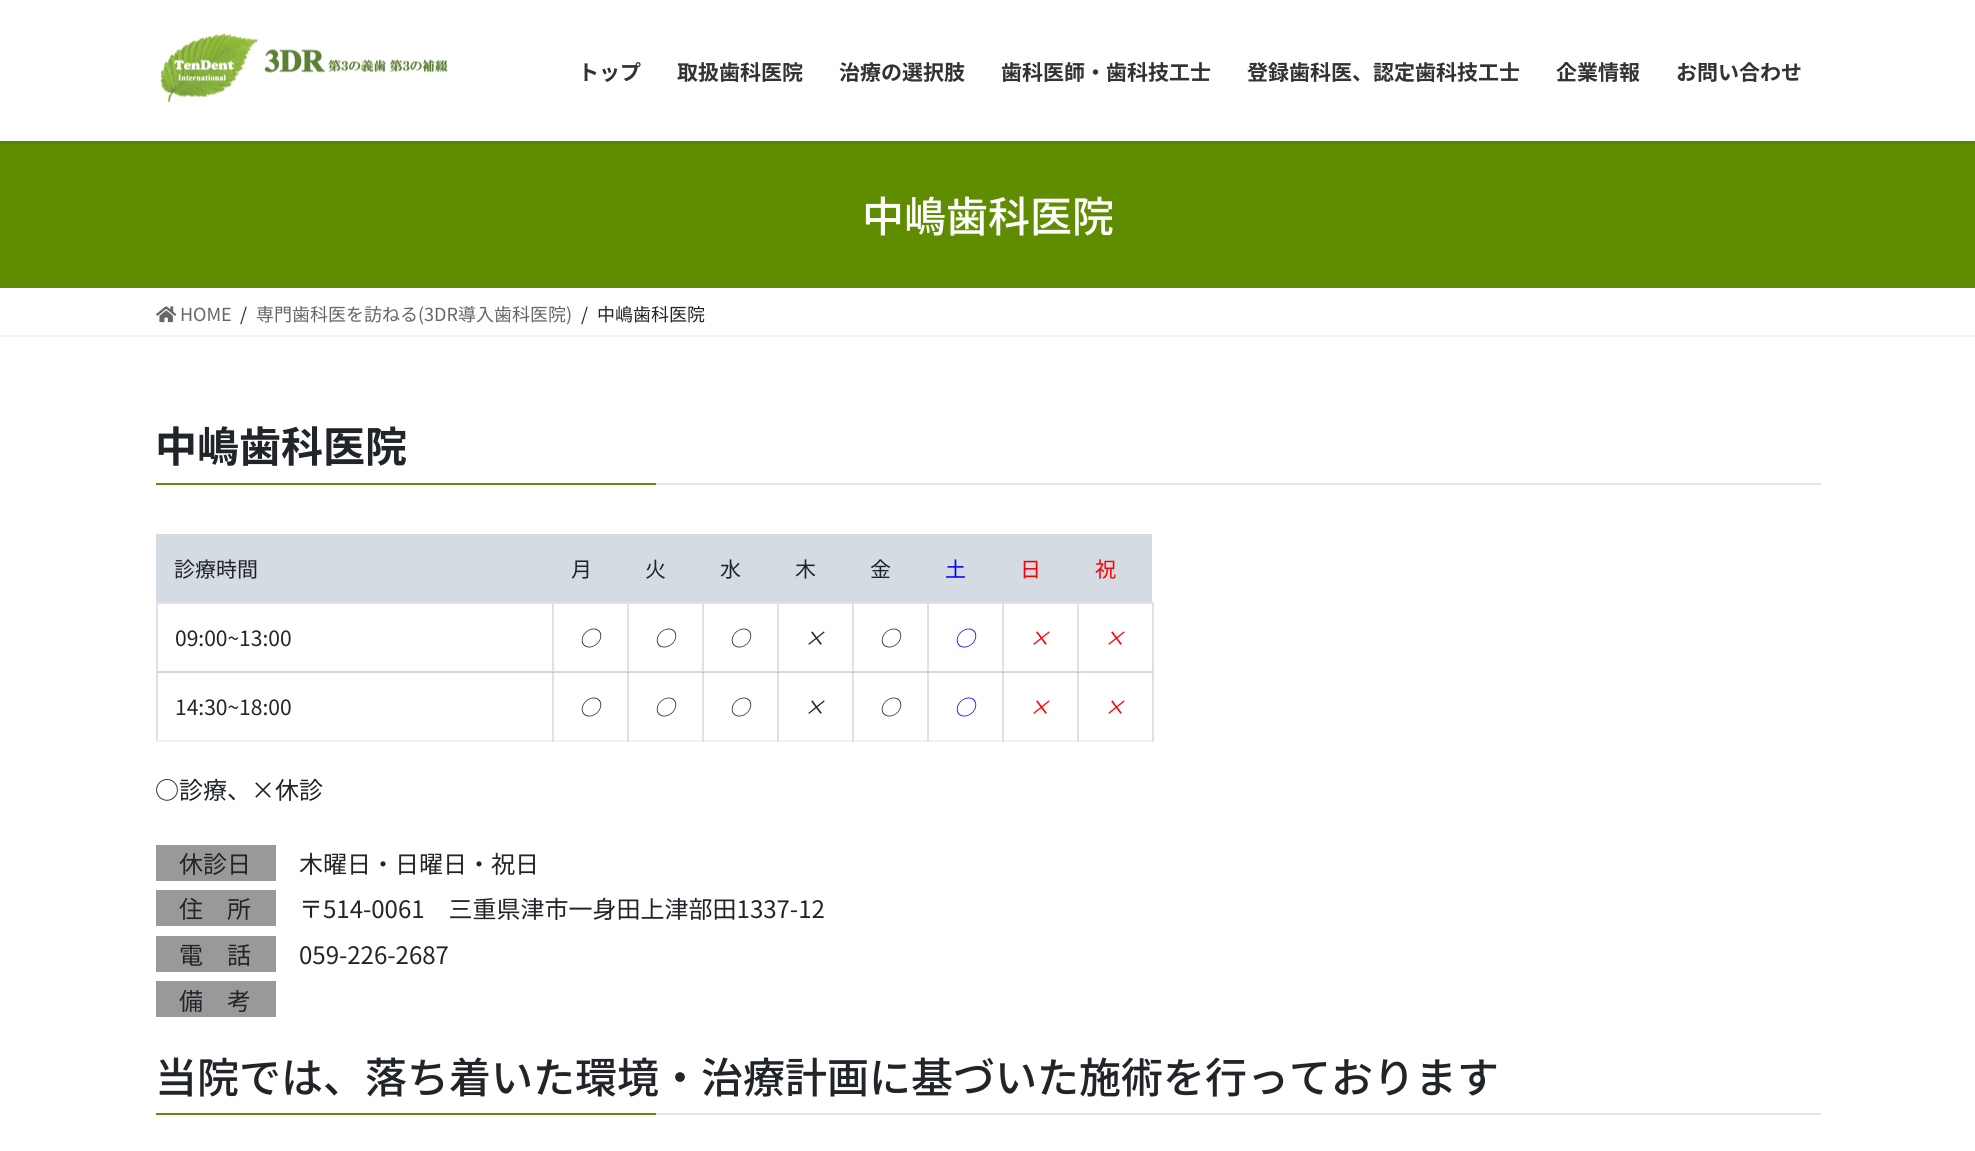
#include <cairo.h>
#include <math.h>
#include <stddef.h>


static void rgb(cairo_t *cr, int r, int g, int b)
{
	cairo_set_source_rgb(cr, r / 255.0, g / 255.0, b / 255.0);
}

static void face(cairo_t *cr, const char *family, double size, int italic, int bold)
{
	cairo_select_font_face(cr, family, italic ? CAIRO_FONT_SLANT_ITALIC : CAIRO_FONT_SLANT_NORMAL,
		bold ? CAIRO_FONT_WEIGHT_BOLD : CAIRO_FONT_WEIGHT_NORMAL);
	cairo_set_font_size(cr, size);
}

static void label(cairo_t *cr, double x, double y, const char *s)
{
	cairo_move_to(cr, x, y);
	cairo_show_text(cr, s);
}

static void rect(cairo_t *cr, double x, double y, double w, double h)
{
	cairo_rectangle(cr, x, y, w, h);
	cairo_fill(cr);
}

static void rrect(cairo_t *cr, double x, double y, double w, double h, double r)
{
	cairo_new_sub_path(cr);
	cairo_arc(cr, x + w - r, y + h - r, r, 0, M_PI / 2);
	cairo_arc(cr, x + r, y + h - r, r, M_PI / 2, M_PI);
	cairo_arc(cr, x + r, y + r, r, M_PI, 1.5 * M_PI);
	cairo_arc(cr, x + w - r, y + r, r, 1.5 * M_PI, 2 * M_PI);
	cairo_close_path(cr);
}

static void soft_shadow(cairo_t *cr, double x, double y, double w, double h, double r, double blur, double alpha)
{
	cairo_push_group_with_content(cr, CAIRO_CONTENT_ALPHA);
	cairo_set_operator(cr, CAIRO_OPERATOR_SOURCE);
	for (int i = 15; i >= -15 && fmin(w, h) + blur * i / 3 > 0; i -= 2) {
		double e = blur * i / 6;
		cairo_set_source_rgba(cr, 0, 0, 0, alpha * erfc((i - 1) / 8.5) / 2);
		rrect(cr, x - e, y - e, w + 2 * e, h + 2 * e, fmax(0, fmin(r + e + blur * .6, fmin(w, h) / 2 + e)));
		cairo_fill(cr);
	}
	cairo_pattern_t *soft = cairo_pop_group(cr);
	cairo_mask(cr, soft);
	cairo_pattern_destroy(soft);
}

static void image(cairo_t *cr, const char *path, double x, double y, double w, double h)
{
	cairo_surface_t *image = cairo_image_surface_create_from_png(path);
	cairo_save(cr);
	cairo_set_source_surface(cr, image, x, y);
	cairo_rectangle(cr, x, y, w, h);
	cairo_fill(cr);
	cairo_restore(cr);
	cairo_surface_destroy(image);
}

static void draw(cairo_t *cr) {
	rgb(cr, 255, 255, 255);
	cairo_paint(cr);
	rgb(cr, 242, 242, 242);
	rect(cr, 156, 740, 998, 2);
	rgb(cr, 230, 230, 230);
	rect(cr, 552, 741, 2, 1);
	rgb(cr, 214, 218, 221);
	rect(cr, 552, 671, 602, 2);
	rgb(cr, 230, 230, 230);
	rect(cr, 627, 741, 2, 1);
	rect(cr, 702, 741, 2, 1);
	rect(cr, 777, 741, 2, 1);
	rect(cr, 852, 741, 2, 1);
	rect(cr, 927, 741, 2, 1);
	rect(cr, 1002, 741, 2, 1);
	rect(cr, 1077, 741, 2, 1);
	rgb(cr, 95, 140, 0);
	rect(cr, 0, 141, 1975, 147);
	cairo_save(cr);
	cairo_rectangle(cr, 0, 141, 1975, 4);
	cairo_clip(cr);
	rgb(cr, 0, 0, 0);
	soft_shadow(cr, 0, 2, 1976, 141, 0, 2, 0.1);
	cairo_restore(cr);
	image(cr, "image0.png", 160, 33, 288, 70);
	face(cr, "Noto Sans JP", 21, 0, 1);
	rgb(cr, 51, 51, 51);
	label(cr, 578, 80, "トップ");
	label(cr, 677, 80, "取扱歯科医院");
	label(cr, 839, 80, "治療の選択肢");
	label(cr, 1001, 80, "歯科医師・歯科技工士");
	label(cr, 1247, 80, "登録歯科医、認定歯科技工士");
	label(cr, 1556, 80, "企業情報");
	label(cr, 1676, 80, "お問い合わせ");
	face(cr, "Noto Sans JP Medium", 42, 0, 0);
	rgb(cr, 255, 255, 255);
	label(cr, 862, 232, "中嶋歯科医院");
	rgb(cr, 242, 242, 242);
	rect(cr, 0, 335, 1975, 2);
	image(cr, "image1.png", 156, 306, 21, 17);
	face(cr, "Noto Sans JP", 18, 0, 0);
	rgb(cr, 102, 102, 102);
	label(cr, 180, 321, "HOME");
	rgb(cr, 33, 37, 41);
	label(cr, 240, 321, "/");
	rgb(cr, 102, 102, 102);
	label(cr, 256, 321, "専門歯科医を訪ねる(3DR導入歯科医院)");
	rgb(cr, 33, 37, 41);
	label(cr, 581, 321, "/");
	label(cr, 597, 321, "中嶋歯科医院");
	rgb(cr, 230, 230, 230);
	rect(cr, 656, 483, 1165, 2);
	face(cr, "Noto Sans JP", 42, 0, 1);
	rgb(cr, 33, 37, 41);
	label(cr, 155, 462, "中嶋歯科医院");
	rgb(cr, 95, 140, 0);
	rect(cr, 156, 483, 500, 2);
	rgb(cr, 212, 219, 227);
	rect(cr, 156, 534, 996, 68);
	face(cr, "Noto Sans JP", 21, 0, 0);
	rgb(cr, 33, 37, 41);
	label(cr, 174, 577, "診療時間");
	label(cr, 571, 577, "月");
	label(cr, 645, 577, "火");
	label(cr, 720, 577, "水");
	label(cr, 795, 577, "木");
	label(cr, 870, 577, "金");
	rgb(cr, 0, 0, 255);
	label(cr, 945, 577, "土");
	rgb(cr, 255, 0, 0);
	label(cr, 1020, 577, "日");
	rgb(cr, 222, 226, 230);
	rect(cr, 552, 671, 2, 70);
	rgb(cr, 211, 215, 219);
	rect(cr, 156, 671, 398, 2);
	rgb(cr, 222, 226, 230);
	rect(cr, 552, 602, 2, 70);
	rect(cr, 156, 602, 398, 2);
	rect(cr, 627, 602, 2, 139);
	rect(cr, 702, 602, 2, 139);
	rect(cr, 777, 602, 2, 139);
	rect(cr, 852, 602, 2, 139);
	rect(cr, 927, 602, 2, 139);
	rect(cr, 1002, 602, 2, 139);
	rect(cr, 1152, 602, 2, 139);
	rect(cr, 1077, 602, 2, 139);
	rect(cr, 552, 602, 602, 2);
	rgb(cr, 255, 0, 0);
	label(cr, 1095, 577, "祝");
	rgb(cr, 222, 226, 230);
	rect(cr, 156, 671, 2, 70);
	rect(cr, 156, 602, 2, 70);
	rgb(cr, 33, 37, 41);
	label(cr, 175, 646, "09:00~13:00");
	rgb(cr, 211, 215, 219);
	rect(cr, 552, 671, 2, 1);
	face(cr, "Noto Sans JP", 21, 1, 0);
	rgb(cr, 33, 37, 41);
	label(cr, 579, 646, "○");
	rgb(cr, 211, 215, 219);
	rect(cr, 627, 671, 2, 1);
	rgb(cr, 33, 37, 41);
	label(cr, 654, 646, "○");
	rgb(cr, 211, 215, 219);
	rect(cr, 702, 671, 2, 1);
	rgb(cr, 33, 37, 41);
	label(cr, 729, 646, "○");
	rgb(cr, 211, 215, 219);
	rect(cr, 777, 671, 2, 1);
	rgb(cr, 33, 37, 41);
	label(cr, 804, 646, "×");
	rgb(cr, 211, 215, 219);
	rect(cr, 852, 671, 2, 1);
	rgb(cr, 33, 37, 41);
	label(cr, 879, 646, "○");
	rgb(cr, 211, 215, 219);
	rect(cr, 927, 671, 2, 1);
	rgb(cr, 0, 0, 255);
	label(cr, 954, 646, "○");
	rgb(cr, 211, 215, 219);
	rect(cr, 1002, 671, 2, 1);
	rgb(cr, 255, 0, 0);
	label(cr, 1029, 646, "×");
	rgb(cr, 211, 215, 219);
	rect(cr, 1077, 671, 2, 1);
	rgb(cr, 255, 0, 0);
	label(cr, 1104, 646, "×");
	rgb(cr, 200, 204, 208);
	rect(cr, 552, 672, 2, 1);
	rgb(cr, 211, 215, 219);
	rect(cr, 156, 672, 2, 1);
	face(cr, "Noto Sans JP", 21, 0, 0);
	rgb(cr, 33, 37, 41);
	label(cr, 175, 715, "14:30~18:00");
	rgb(cr, 211, 215, 219);
	rect(cr, 552, 740, 2, 1);
	face(cr, "Noto Sans JP", 21, 1, 0);
	rgb(cr, 33, 37, 41);
	label(cr, 579, 715, "○");
	rgb(cr, 211, 215, 219);
	rect(cr, 627, 740, 2, 1);
	rgb(cr, 200, 204, 208);
	rect(cr, 627, 672, 2, 1);
	rgb(cr, 33, 37, 41);
	label(cr, 654, 715, "○");
	rgb(cr, 211, 215, 219);
	rect(cr, 702, 740, 2, 1);
	rgb(cr, 200, 204, 208);
	rect(cr, 702, 672, 2, 1);
	rgb(cr, 33, 37, 41);
	label(cr, 729, 715, "○");
	rgb(cr, 211, 215, 219);
	rect(cr, 777, 740, 2, 1);
	rgb(cr, 200, 204, 208);
	rect(cr, 777, 672, 2, 1);
	rgb(cr, 33, 37, 41);
	label(cr, 804, 715, "×");
	rgb(cr, 211, 215, 219);
	rect(cr, 852, 740, 2, 1);
	rgb(cr, 200, 204, 208);
	rect(cr, 852, 672, 2, 1);
	rgb(cr, 33, 37, 41);
	label(cr, 879, 715, "○");
	rgb(cr, 211, 215, 219);
	rect(cr, 927, 740, 2, 1);
	rgb(cr, 200, 204, 208);
	rect(cr, 927, 672, 2, 1);
	rgb(cr, 0, 0, 255);
	label(cr, 954, 715, "○");
	rgb(cr, 211, 215, 219);
	rect(cr, 1002, 740, 2, 1);
	rgb(cr, 200, 204, 208);
	rect(cr, 1002, 672, 2, 1);
	rgb(cr, 255, 0, 0);
	label(cr, 1029, 715, "×");
	rgb(cr, 211, 215, 219);
	rect(cr, 1152, 671, 2, 2);
	rect(cr, 1152, 740, 2, 1);
	rect(cr, 1077, 740, 2, 1);
	rgb(cr, 200, 204, 208);
	rect(cr, 1077, 672, 2, 1);
	rgb(cr, 255, 0, 0);
	label(cr, 1104, 715, "×");
	face(cr, "Noto Sans JP", 24, 0, 0);
	rgb(cr, 33, 37, 41);
	label(cr, 155, 799, "○診療、×休診");
	rgb(cr, 153, 153, 153);
	rect(cr, 156, 845, 120, 36);
	rgb(cr, 33, 37, 41);
	label(cr, 179, 873, "休診日");
	label(cr, 299, 873, "木曜日・日曜日・祝日");
	rgb(cr, 153, 153, 153);
	rect(cr, 156, 890, 120, 36);
	rgb(cr, 33, 37, 41);
	label(cr, 179, 918, "住　所");
	label(cr, 299, 918, "〒514-0061　三重県津市一身田上津部田1337-12");
	rgb(cr, 153, 153, 153);
	rect(cr, 156, 936, 120, 36);
	rgb(cr, 33, 37, 41);
	label(cr, 179, 964, "電　話");
	label(cr, 299, 964, "059-226-2687");
	rgb(cr, 153, 153, 153);
	rect(cr, 156, 981, 120, 36);
	rgb(cr, 33, 37, 41);
	label(cr, 179, 1010, "備　考");
	rgb(cr, 230, 230, 230);
	rect(cr, 656, 1113, 1165, 2);
	face(cr, "Noto Sans JP Medium", 42, 0, 0);
	rgb(cr, 33, 37, 41);
	label(cr, 155, 1093, "当院では、落ち着いた環境・治療計画に基づいた施術を行っております");
	rgb(cr, 95, 140, 0);
	rect(cr, 156, 1113, 500, 2);
}

int main(void) {
	cairo_surface_t *surface = cairo_image_surface_create(CAIRO_FORMAT_RGB24, 1975, 1151);
	cairo_t *cr = cairo_create(surface);
	cairo_font_options_t *options = cairo_font_options_create();
	cairo_font_options_set_hint_metrics(options, CAIRO_HINT_METRICS_OFF);
	cairo_font_options_set_hint_style(options, CAIRO_HINT_STYLE_NONE);
	cairo_set_font_options(cr, options);
	cairo_set_miter_limit(cr, 4);
	draw(cr);
	cairo_surface_write_to_png(surface, "render.png");
	cairo_font_options_destroy(options);
	cairo_destroy(cr);
	cairo_surface_destroy(surface);
	return 0;
}
